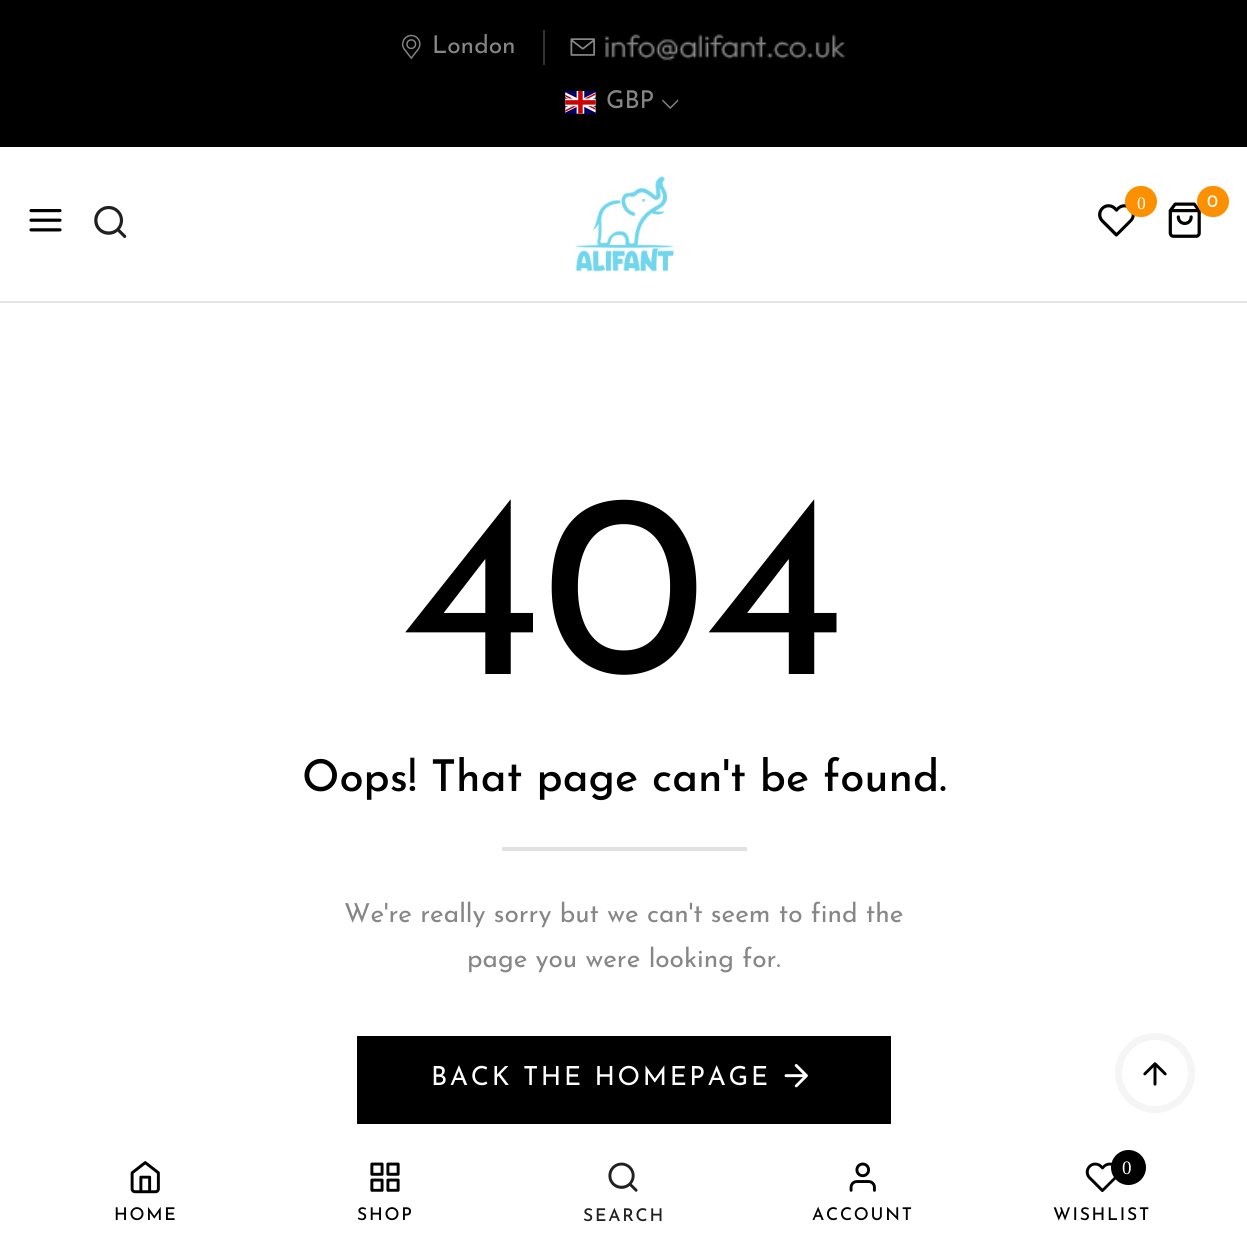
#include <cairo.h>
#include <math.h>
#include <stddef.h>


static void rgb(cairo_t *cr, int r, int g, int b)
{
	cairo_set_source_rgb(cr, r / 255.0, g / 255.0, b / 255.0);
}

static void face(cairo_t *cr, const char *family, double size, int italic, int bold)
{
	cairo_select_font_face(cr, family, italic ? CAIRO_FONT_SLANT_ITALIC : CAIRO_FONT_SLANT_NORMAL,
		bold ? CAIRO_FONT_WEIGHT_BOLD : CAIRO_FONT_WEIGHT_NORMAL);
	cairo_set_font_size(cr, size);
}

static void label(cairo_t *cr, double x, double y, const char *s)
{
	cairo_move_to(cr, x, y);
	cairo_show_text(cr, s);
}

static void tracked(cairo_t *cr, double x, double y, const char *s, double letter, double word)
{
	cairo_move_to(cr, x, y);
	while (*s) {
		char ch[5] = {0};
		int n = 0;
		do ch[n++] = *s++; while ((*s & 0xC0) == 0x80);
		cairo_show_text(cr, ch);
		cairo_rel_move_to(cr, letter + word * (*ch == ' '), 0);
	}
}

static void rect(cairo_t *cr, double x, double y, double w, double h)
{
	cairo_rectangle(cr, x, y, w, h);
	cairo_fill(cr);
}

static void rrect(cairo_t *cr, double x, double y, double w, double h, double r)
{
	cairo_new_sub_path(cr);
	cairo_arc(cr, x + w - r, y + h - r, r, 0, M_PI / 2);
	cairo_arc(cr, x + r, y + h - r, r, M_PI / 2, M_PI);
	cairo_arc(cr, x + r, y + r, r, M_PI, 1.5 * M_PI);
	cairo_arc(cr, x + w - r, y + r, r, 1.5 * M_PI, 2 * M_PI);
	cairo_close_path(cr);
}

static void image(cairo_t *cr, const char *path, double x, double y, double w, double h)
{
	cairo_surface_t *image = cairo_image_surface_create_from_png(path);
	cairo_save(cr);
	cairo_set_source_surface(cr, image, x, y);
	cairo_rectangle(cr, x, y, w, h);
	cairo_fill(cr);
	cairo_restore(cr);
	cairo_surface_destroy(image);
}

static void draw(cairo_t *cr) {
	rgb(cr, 255, 255, 255);
	cairo_paint(cr);
	rgb(cr, 0, 0, 0);
	rect(cr, 0, 0, 1247, 147);
	image(cr, "image0.png", 401, 34, 20, 26);
	face(cr, "Josefin Sans", 24.5, 0, 0);
	rgb(cr, 134, 134, 134);
	label(cr, 432, 53, "London");
	rgb(cr, 51, 51, 51);
	rect(cr, 543, 30, 2, 35);
	image(cr, "image1.png", 570, 38, 25, 18);
	image(cr, "image2.png", 605, 34, 241, 27);
	image(cr, "image3.png", 565, 91, 31, 23);
	rgb(cr, 134, 134, 134);
	label(cr, 606, 108, "GBP");
	image(cr, "image4.png", 662, 99, 17, 10);
	rgb(cr, 229, 229, 229);
	rect(cr, 0, 301, 1247, 2);
	image(cr, "image5.png", 575, 176, 99, 96);
	image(cr, "image6.png", 1098, 204, 37, 33);
	rgb(cr, 253, 144, 0);
	rrect(cr, 1125, 186, 32, 31, 15.5);
	cairo_fill(cr);
	face(cr, "Liberation Serif", 17.5, 0, 0);
	rgb(cr, 255, 255, 255);
	label(cr, 1137, 209, "0");
	image(cr, "image7.png", 1168, 202, 33, 36);
	rgb(cr, 253, 144, 0);
	rrect(cr, 1197, 186, 32, 31, 15.5);
	cairo_fill(cr);
	face(cr, "Josefin Sans", 17.5, 0, 0);
	rgb(cr, 255, 255, 255);
	label(cr, 1207, 207, "0");
	image(cr, "image8.png", 29, 209, 33, 23);
	image(cr, "image9.png", 94, 205, 33, 33);
	image(cr, "image10.png", 130, 1161, 30, 33);
	face(cr, "Josefin Sans Medium", 17.5, 0, 0);
	rgb(cr, 0, 0, 0);
	tracked(cr, 114, 1220, "HOME", 1.75, 0);
	image(cr, "image11.png", 370, 1162, 30, 30);
	tracked(cr, 357, 1220, "SHOP", 1.75, 0);
	image(cr, "image12.png", 608, 1162, 30, 30);
	rgb(cr, 31, 32, 33);
	tracked(cr, 583, 1221, "SEARCH", 1.75, 0);
	image(cr, "image13.png", 849, 1162, 27, 30);
	rgb(cr, 0, 0, 0);
	tracked(cr, 812, 1220, "ACCOUNT", 1.75, 0);
	image(cr, "image14.png", 1085, 1162, 31, 30);
	cairo_arc(cr, 1128.5, 1167.5, 17.5, 0, 2 * M_PI);
	cairo_fill(cr);
	face(cr, "Liberation Serif", 19, 0, 0);
	rgb(cr, 255, 255, 255);
	tracked(cr, 1122, 1174, "0", 1.75, 0);
	face(cr, "Josefin Sans Medium", 17.5, 0, 0);
	rgb(cr, 0, 0, 0);
	tracked(cr, 1053, 1220, "WISHLIST", 1.75, 0);
	face(cr, "Josefin Sans", 262, 0, 0);
	label(cr, 402, 674, "404");
	face(cr, "Josefin Sans Medium", 43.75, 0, 0);
	label(cr, 302, 791, "Oops! That page can't be found.");
	rgb(cr, 225, 225, 225);
	rect(cr, 502, 847, 245, 4);
	face(cr, "Josefin Sans", 26.25, 0, 0);
	rgb(cr, 134, 134, 134);
	label(cr, 344, 922, "We're really sorry but we can't seem to find the");
	label(cr, 467, 967, "page you were looking for.");
	rgb(cr, 0, 0, 0);
	rect(cr, 357, 1036, 534, 88);
	rgb(cr, 255, 255, 255);
	tracked(cr, 431, 1085, "BACK THE HOMEPAGE", 2.6, 0);
	image(cr, "image15.png", 784, 1064, 24, 24);
	cairo_arc(cr, 1155, 1073, 36.5, 0, 2 * M_PI);
	rgb(cr, 245, 245, 245);
	cairo_set_line_width(cr, 7);
	cairo_stroke(cr);
	image(cr, "image16.png", 1143, 1062, 24, 24);
}

int main(void) {
	cairo_surface_t *surface = cairo_image_surface_create(CAIRO_FORMAT_RGB24, 1247, 1234);
	cairo_t *cr = cairo_create(surface);
	cairo_font_options_t *options = cairo_font_options_create();
	cairo_font_options_set_hint_metrics(options, CAIRO_HINT_METRICS_OFF);
	cairo_font_options_set_hint_style(options, CAIRO_HINT_STYLE_NONE);
	cairo_set_font_options(cr, options);
	cairo_set_miter_limit(cr, 4);
	draw(cr);
	cairo_surface_write_to_png(surface, "render.png");
	cairo_font_options_destroy(options);
	cairo_destroy(cr);
	cairo_surface_destroy(surface);
	return 0;
}
